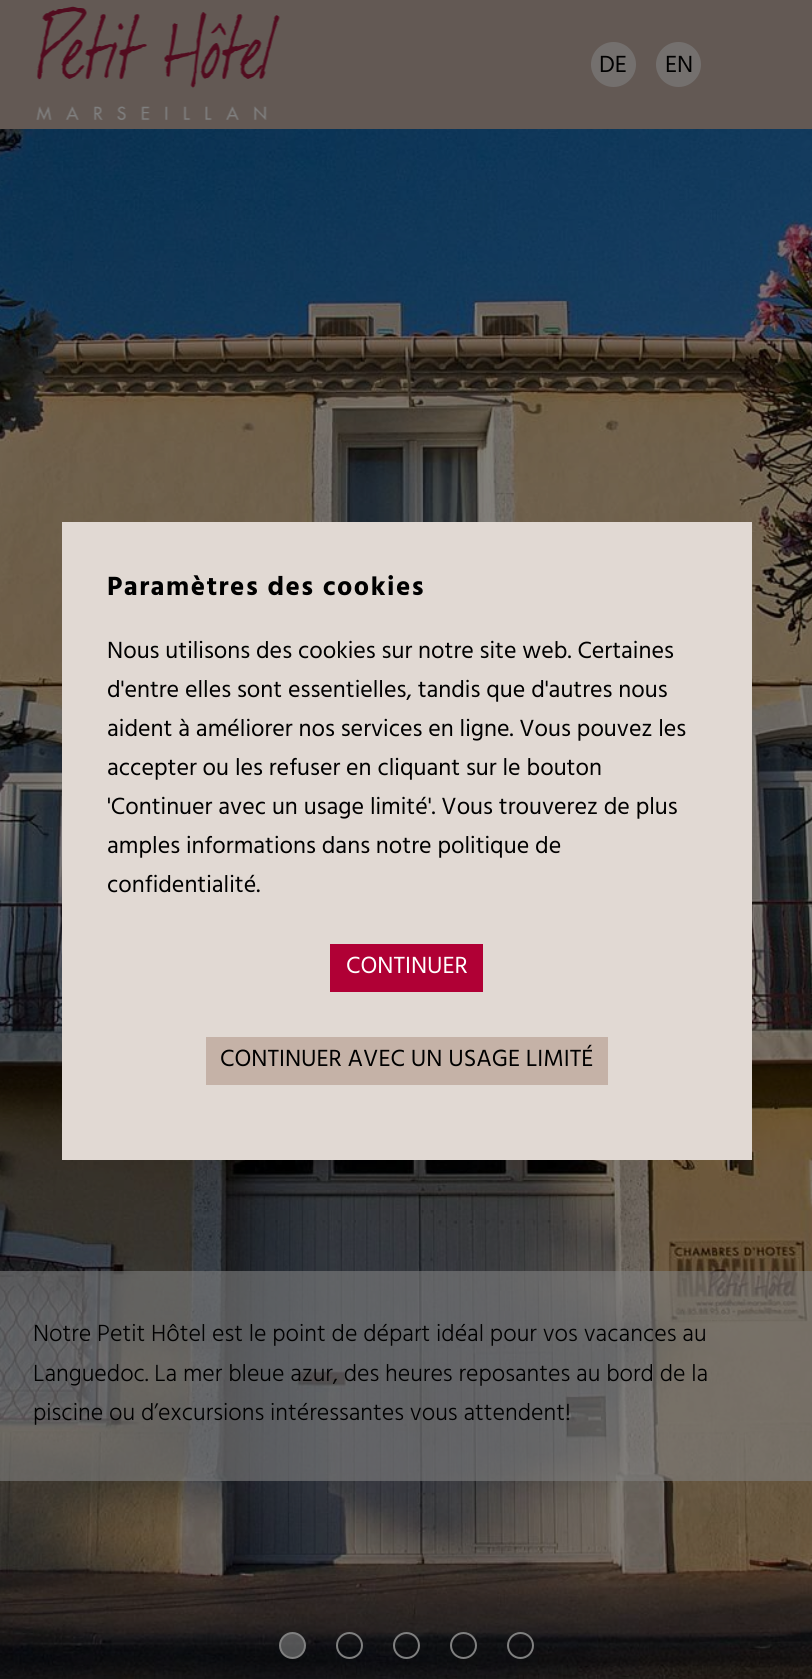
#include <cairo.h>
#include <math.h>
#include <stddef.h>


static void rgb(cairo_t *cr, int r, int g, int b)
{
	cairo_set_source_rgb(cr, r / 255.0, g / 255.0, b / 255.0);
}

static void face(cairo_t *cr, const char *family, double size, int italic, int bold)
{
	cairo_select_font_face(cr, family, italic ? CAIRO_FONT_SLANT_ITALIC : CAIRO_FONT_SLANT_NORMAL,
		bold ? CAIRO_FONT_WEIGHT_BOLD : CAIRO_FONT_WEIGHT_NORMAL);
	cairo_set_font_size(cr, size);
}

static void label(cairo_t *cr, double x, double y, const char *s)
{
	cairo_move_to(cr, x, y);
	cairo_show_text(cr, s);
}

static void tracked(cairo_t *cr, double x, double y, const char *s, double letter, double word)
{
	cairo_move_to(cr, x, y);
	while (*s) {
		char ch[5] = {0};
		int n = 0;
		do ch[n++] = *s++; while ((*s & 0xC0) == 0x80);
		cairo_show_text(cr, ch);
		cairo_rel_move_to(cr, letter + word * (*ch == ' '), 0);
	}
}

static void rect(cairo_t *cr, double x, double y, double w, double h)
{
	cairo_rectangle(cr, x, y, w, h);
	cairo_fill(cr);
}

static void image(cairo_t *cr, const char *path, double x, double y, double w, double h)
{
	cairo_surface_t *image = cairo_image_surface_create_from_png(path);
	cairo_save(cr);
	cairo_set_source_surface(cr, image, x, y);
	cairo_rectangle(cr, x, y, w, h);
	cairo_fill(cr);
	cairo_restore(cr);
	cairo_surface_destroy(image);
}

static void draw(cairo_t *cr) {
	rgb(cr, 255, 255, 255);
	cairo_paint(cr);
	rgb(cr, 99, 89, 84);
	rect(cr, 0, 0, 812, 129);
	image(cr, "image0.png", 36, 6, 244, 114);
	rgb(cr, 116, 112, 110);
	cairo_arc(cr, 613.5, 64.5, 22.5, 0, 2 * M_PI);
	cairo_fill(cr);
	face(cr, "Hind", 24, 0, 0);
	rgb(cr, 0, 0, 0);
	label(cr, 599, 72, "DE");
	rgb(cr, 116, 112, 110);
	cairo_new_path(cr);
	cairo_arc(cr, 678.5, 64.5, 22.5, 0, 2 * M_PI);
	cairo_fill(cr);
	rgb(cr, 0, 0, 0);
	label(cr, 665, 72, "EN");
	image(cr, "image1.png", 0, 129, 812, 1550);
	rgb(cr, 225, 217, 211);
	rect(cr, 62, 522, 690, 638);
	face(cr, "Hind", 27, 0, 1);
	rgb(cr, 0, 0, 0);
	tracked(cr, 107, 595, "Paramètres des cookies", 1.5, 0);
	face(cr, "Hind", 24, 0, 0);
	label(cr, 107, 658, "Nous utilisons des cookies sur notre site web. Certaines");
	label(cr, 107, 697, "d'entre elles sont essentielles, tandis que d'autres nous");
	label(cr, 107, 736, "aident à améliorer nos services en ligne. Vous pouvez les");
	label(cr, 107, 775, "accepter ou les refuser en cliquant sur le bouton");
	label(cr, 107, 814, "'Continuer avec un usage limité'. Vous trouverez de plus");
	label(cr, 107, 853, "amples informations dans notre politique de");
	label(cr, 107, 892, "confidentialité.");
	rgb(cr, 176, 0, 53);
	rect(cr, 330, 944, 153, 48);
	rgb(cr, 255, 255, 255);
	label(cr, 346, 973, "CONTINUER");
	rgb(cr, 197, 178, 167);
	rect(cr, 206, 1037, 402, 48);
	rgb(cr, 0, 0, 0);
	label(cr, 220, 1066, "CONTINUER AVEC UN USAGE LIMITÉ");
	cairo_set_source_rgba(cr, 0.502, 0.502, 0.502, 0.6);
	rect(cr, 0, 1271, 812, 210);
	face(cr, "Hind Light", 24, 0, 0);
	rgb(cr, 0, 0, 0);
	label(cr, 33, 1341, "Notre Petit Hôtel est le point de départ idéal pour vos vacances au");
	label(cr, 33, 1381, "Languedoc. La mer bleue azur, des heures reposantes au bord de la");
	label(cr, 33, 1420, "piscine ou d’excursions intéressantes vous attendent!");
	cairo_set_source_rgba(cr, 0.502, 0.502, 0.502, 0.6);
	cairo_new_path(cr);
	cairo_arc(cr, 292.5, 1645.5, 12.5, 0, 2 * M_PI);
	cairo_fill_preserve(cr);
	rgb(cr, 128, 128, 128);
	cairo_stroke(cr);
	cairo_arc(cr, 349.5, 1645.5, 12.5, 0, 2 * M_PI);
	cairo_stroke(cr);
	cairo_arc(cr, 406.5, 1645.5, 12.5, 0, 2 * M_PI);
	cairo_stroke(cr);
	cairo_arc(cr, 463.5, 1645.5, 12.5, 0, 2 * M_PI);
	cairo_stroke(cr);
	cairo_arc(cr, 520.5, 1645.5, 12.5, 0, 2 * M_PI);
	cairo_stroke(cr);
}

int main(void) {
	cairo_surface_t *surface = cairo_image_surface_create(CAIRO_FORMAT_RGB24, 812, 1679);
	cairo_t *cr = cairo_create(surface);
	cairo_font_options_t *options = cairo_font_options_create();
	cairo_font_options_set_hint_metrics(options, CAIRO_HINT_METRICS_OFF);
	cairo_font_options_set_hint_style(options, CAIRO_HINT_STYLE_NONE);
	cairo_set_font_options(cr, options);
	cairo_set_miter_limit(cr, 4);
	draw(cr);
	cairo_surface_write_to_png(surface, "render.png");
	cairo_font_options_destroy(options);
	cairo_destroy(cr);
	cairo_surface_destroy(surface);
	return 0;
}
